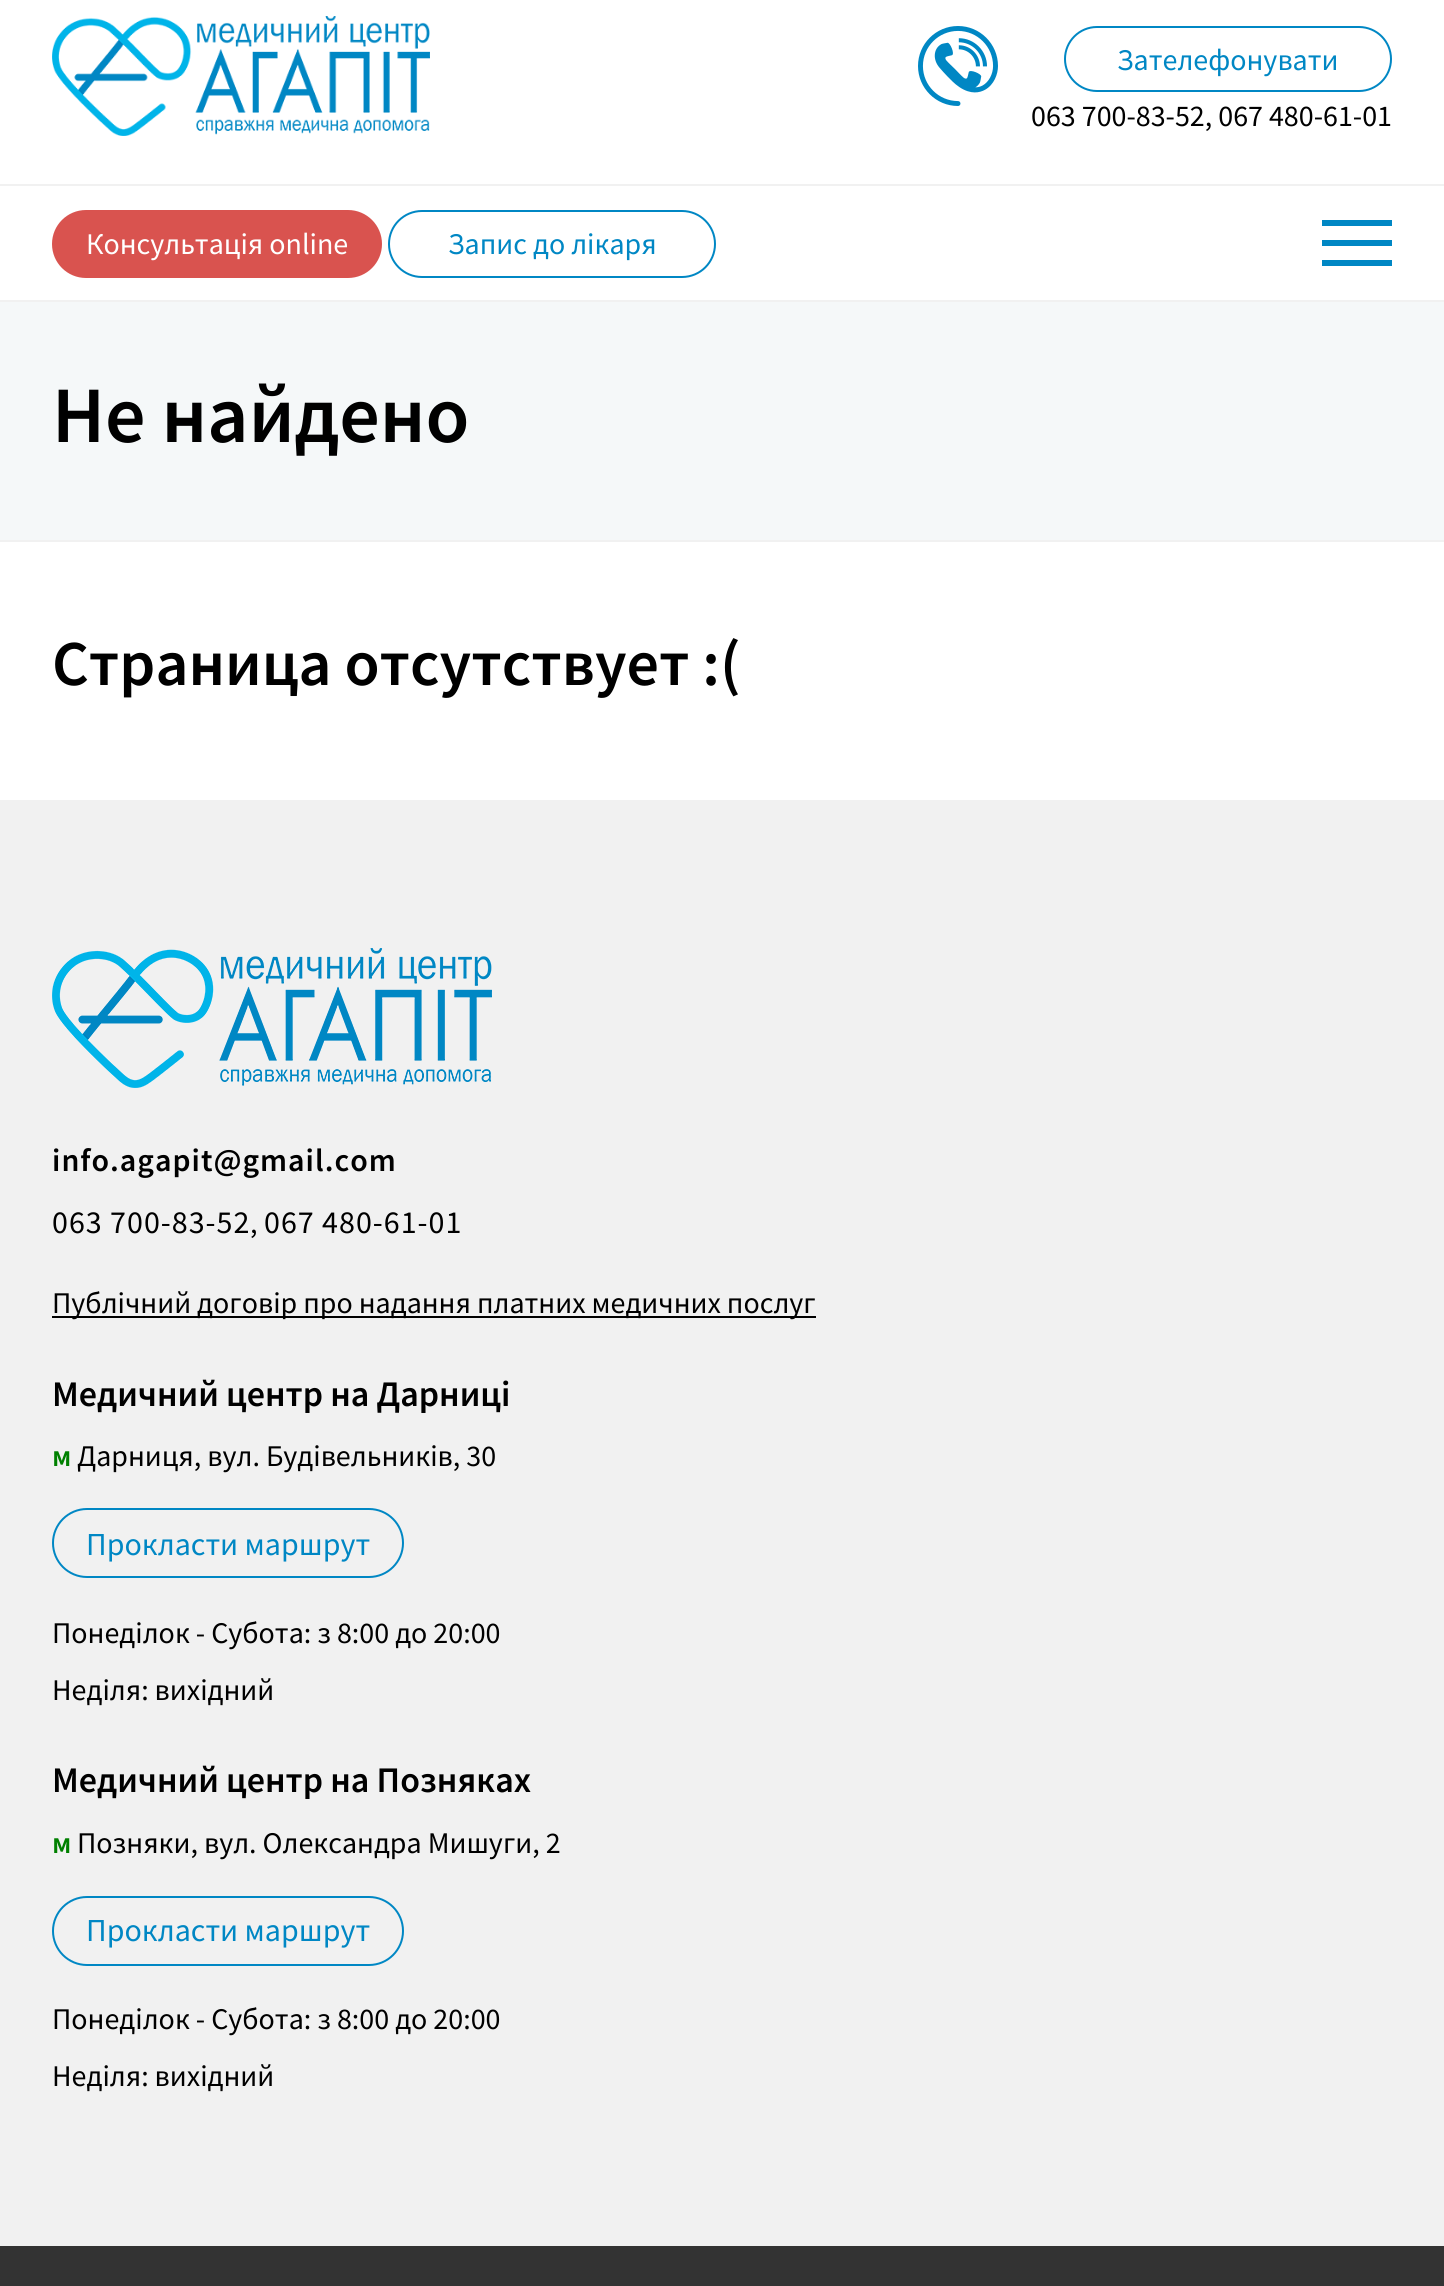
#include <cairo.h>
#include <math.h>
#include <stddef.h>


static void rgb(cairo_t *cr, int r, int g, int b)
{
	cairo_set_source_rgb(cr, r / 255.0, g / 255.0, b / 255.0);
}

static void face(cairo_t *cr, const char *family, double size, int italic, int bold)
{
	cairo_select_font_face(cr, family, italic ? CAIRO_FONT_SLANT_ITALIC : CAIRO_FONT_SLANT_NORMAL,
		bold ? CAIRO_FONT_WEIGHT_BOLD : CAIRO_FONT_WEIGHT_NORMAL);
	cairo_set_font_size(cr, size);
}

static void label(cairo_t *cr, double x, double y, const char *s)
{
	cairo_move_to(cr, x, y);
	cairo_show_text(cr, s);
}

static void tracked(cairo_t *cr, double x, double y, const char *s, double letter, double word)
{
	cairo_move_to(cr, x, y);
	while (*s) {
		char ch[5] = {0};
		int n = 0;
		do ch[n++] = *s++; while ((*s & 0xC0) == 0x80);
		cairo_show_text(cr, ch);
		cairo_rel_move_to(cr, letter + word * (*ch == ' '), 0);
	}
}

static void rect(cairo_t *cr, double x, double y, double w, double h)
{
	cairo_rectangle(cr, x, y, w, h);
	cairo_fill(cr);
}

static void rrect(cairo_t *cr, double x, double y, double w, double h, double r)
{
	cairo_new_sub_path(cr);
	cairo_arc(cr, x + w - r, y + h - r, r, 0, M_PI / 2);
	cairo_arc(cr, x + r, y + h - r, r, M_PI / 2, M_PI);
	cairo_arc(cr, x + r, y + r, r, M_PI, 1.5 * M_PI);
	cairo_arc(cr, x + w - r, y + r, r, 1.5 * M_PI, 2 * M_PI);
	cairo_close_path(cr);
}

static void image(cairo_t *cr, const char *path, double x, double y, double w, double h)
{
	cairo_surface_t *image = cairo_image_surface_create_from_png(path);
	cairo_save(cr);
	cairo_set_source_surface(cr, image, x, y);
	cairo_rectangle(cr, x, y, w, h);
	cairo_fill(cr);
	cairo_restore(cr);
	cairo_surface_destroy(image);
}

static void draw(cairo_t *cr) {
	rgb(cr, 255, 255, 255);
	cairo_paint(cr);
	image(cr, "image0.png", 52, 16, 378, 120);
	image(cr, "image1.png", 918, 26, 80, 80);
	rrect(cr, 1065, 27, 326, 64, 32);
	rgb(cr, 0, 135, 196);
	cairo_stroke(cr);
	face(cr, "Source Sans Pro", 30, 0, 0);
	label(cr, 1117, 70, "Зателефонувати");
	rgb(cr, 0, 0, 0);
	label(cr, 1031, 126, "063 700-83-52, 067 480-61-01");
	rgb(cr, 241, 241, 241);
	rect(cr, 0, 184, 1444, 2);
	rect(cr, 0, 300, 1444, 2);
	rgb(cr, 217, 83, 79);
	rrect(cr, 53, 211, 328, 66, 33);
	cairo_fill_preserve(cr);
	cairo_stroke(cr);
	rgb(cr, 255, 255, 255);
	label(cr, 86, 254, "Консультація online");
	rrect(cr, 389, 211, 326, 66, 33);
	rgb(cr, 0, 135, 196);
	cairo_stroke(cr);
	label(cr, 448, 254, "Запис до лікаря");
	rect(cr, 1322, 220, 70, 6);
	rect(cr, 1322, 240, 70, 6);
	rect(cr, 1322, 260, 70, 6);
	rgb(cr, 245, 248, 249);
	rect(cr, 0, 302, 1444, 238);
	rgb(cr, 241, 241, 241);
	rect(cr, 0, 540, 1444, 2);
	face(cr, "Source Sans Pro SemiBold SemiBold", 80, 0, 0);
	rgb(cr, 0, 0, 0);
	label(cr, 52, 442, "Не найдено");
	face(cr, "Source Sans Pro SemiBold SemiBold", 64, 0, 0);
	label(cr, 52, 685, "Страница отсутствует :(");
	rgb(cr, 241, 241, 241);
	rect(cr, 0, 800, 1444, 1446);
	image(cr, "image2.png", 52, 948, 440, 140);
	face(cr, "Source Sans Pro SemiBold SemiBold", 32, 0, 0);
	rgb(cr, 0, 0, 0);
	tracked(cr, 52, 1171, "info.agapit@gmail.com", 1, 0);
	face(cr, "Source Sans Pro", 32, 0, 0);
	tracked(cr, 52, 1233, "063 700-83-52", 1, 0);
	face(cr, "Source Sans Pro", 30, 0, 0);
	label(cr, 250, 1233, ",");
	face(cr, "Source Sans Pro", 32, 0, 0);
	tracked(cr, 264, 1233, "067 480-61-01", 1, 0);
	rect(cr, 52, 1316, 764, 2);
	face(cr, "Source Sans Pro", 30, 0, 0);
	label(cr, 52, 1313, "Публічний договір про надання платних медичних послуг");
	face(cr, "Source Sans Pro SemiBold SemiBold", 36, 0, 0);
	label(cr, 52, 1406, "Медичний центр на Дарниці");
	face(cr, "Source Sans Pro SemiBold SemiBold", 30, 0, 0);
	rgb(cr, 0, 128, 0);
	label(cr, 52, 1466, "м");
	face(cr, "Source Sans Pro", 30, 0, 0);
	rgb(cr, 0, 0, 0);
	label(cr, 77, 1466, "Дарниця, вул. Будівельників, 30");
	rrect(cr, 53, 1509, 350, 68, 34);
	rgb(cr, 0, 135, 196);
	cairo_stroke(cr);
	face(cr, "Source Sans Pro", 32, 0, 0);
	label(cr, 86, 1555, "Прокласти маршрут");
	face(cr, "Source Sans Pro", 30, 0, 0);
	rgb(cr, 0, 0, 0);
	label(cr, 52, 1643, "Понеділок - Субота: з 8:00 до 20:00");
	label(cr, 52, 1700, "Неділя: вихідний");
	face(cr, "Source Sans Pro SemiBold SemiBold", 36, 0, 0);
	label(cr, 52, 1792, "Медичний центр на Позняках");
	face(cr, "Source Sans Pro SemiBold SemiBold", 30, 0, 0);
	rgb(cr, 0, 128, 0);
	label(cr, 52, 1853, "м");
	face(cr, "Source Sans Pro", 30, 0, 0);
	rgb(cr, 0, 0, 0);
	label(cr, 77, 1853, "Позняки, вул. Олександра Мишуги, 2");
	rrect(cr, 53, 1897, 350, 68, 34);
	rgb(cr, 0, 135, 196);
	cairo_stroke(cr);
	face(cr, "Source Sans Pro", 32, 0, 0);
	label(cr, 86, 1941, "Прокласти маршрут");
	face(cr, "Source Sans Pro", 30, 0, 0);
	rgb(cr, 0, 0, 0);
	label(cr, 52, 2029, "Понеділок - Субота: з 8:00 до 20:00");
	label(cr, 52, 2086, "Неділя: вихідний");
	rgb(cr, 51, 51, 51);
	rect(cr, 0, 2246, 1444, 40);
}

int main(void) {
	cairo_surface_t *surface = cairo_image_surface_create(CAIRO_FORMAT_RGB24, 1444, 2286);
	cairo_t *cr = cairo_create(surface);
	cairo_font_options_t *options = cairo_font_options_create();
	cairo_font_options_set_hint_metrics(options, CAIRO_HINT_METRICS_OFF);
	cairo_font_options_set_hint_style(options, CAIRO_HINT_STYLE_NONE);
	cairo_set_font_options(cr, options);
	cairo_set_miter_limit(cr, 4);
	draw(cr);
	cairo_surface_write_to_png(surface, "render.png");
	cairo_font_options_destroy(options);
	cairo_destroy(cr);
	cairo_surface_destroy(surface);
	return 0;
}
